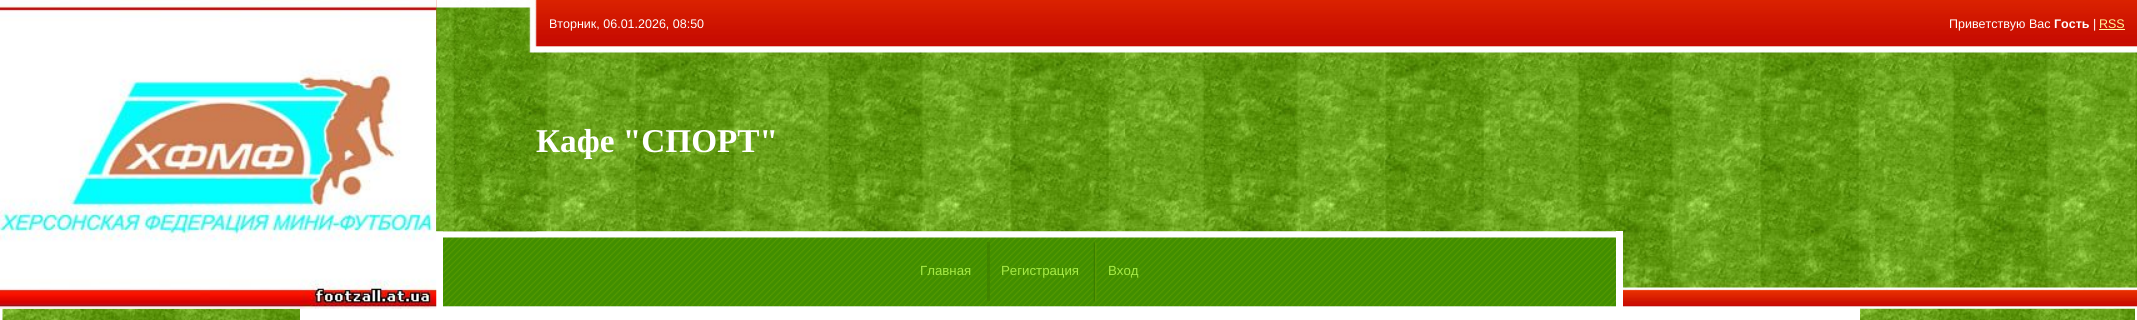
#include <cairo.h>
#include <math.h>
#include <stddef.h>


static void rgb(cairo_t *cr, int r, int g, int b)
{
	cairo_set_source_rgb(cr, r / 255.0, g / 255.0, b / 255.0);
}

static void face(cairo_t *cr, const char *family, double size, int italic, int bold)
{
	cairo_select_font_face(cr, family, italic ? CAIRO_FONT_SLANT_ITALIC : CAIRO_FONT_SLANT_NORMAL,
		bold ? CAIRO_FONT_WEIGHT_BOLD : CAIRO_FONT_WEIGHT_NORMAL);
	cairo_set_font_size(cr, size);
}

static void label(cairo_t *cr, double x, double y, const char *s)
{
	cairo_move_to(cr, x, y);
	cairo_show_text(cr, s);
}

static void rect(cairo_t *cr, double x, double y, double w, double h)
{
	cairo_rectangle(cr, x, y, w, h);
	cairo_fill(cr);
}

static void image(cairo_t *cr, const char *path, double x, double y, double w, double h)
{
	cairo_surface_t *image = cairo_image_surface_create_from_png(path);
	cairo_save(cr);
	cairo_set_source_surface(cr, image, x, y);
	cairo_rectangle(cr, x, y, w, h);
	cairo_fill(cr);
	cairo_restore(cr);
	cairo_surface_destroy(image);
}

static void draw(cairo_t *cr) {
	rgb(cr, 255, 255, 255);
	cairo_paint(cr);
	image(cr, "image0.png", 0, 0, 2137, 309);
	rgb(cr, 255, 255, 255);
	rect(cr, 436, 231, 7, 78);
	image(cr, "image5.png", 2, 308, 298, 12);
	image(cr, "image1.png", 0, 0, 437, 309);
	image(cr, "image3.png", 443, 231, 1173, 78);
	image(cr, "image2.png", 436, 0, 101, 232);
	face(cr, "Liberation Sans", 12.5, 0, 0);
	label(cr, 549, 28, "Вторник, 06.01.2026, 08:50");
	label(cr, 1949, 28, "Приветствую Вас");
	face(cr, "Liberation Sans", 12.5, 0, 1);
	label(cr, 2054, 28, "Гость");
	face(cr, "Liberation Sans", 12.5, 0, 0);
	label(cr, 2093, 28, "|");
	rgb(cr, 255, 247, 153);
	label(cr, 2099, 28, "RSS");
	rect(cr, 2099, 29, 26, 1);
	face(cr, "Liberation Serif", 33.25, 0, 1);
	rgb(cr, 255, 255, 255);
	label(cr, 536, 152, "Кафе \"СПОРТ\"");
	rect(cr, 1616, 231, 7, 78);
	face(cr, "Liberation Sans", 13.25, 0, 0);
	rgb(cr, 166, 235, 71);
	label(cr, 920, 275, "Главная");
	rgb(cr, 65, 132, 0);
	rect(cr, 987, 242, 3, 59);
	rgb(cr, 166, 235, 71);
	label(cr, 1001, 275, "Регистрация");
	image(cr, "image4.png", 1093, 242, 4, 60);
	label(cr, 1108, 275, "Вход");
	image(cr, "image6.png", 1860, 308, 275, 12);
}

int main(void) {
	cairo_surface_t *surface = cairo_image_surface_create(CAIRO_FORMAT_RGB24, 2137, 320);
	cairo_t *cr = cairo_create(surface);
	cairo_font_options_t *options = cairo_font_options_create();
	cairo_font_options_set_hint_metrics(options, CAIRO_HINT_METRICS_OFF);
	cairo_font_options_set_hint_style(options, CAIRO_HINT_STYLE_NONE);
	cairo_set_font_options(cr, options);
	cairo_set_miter_limit(cr, 4);
	draw(cr);
	cairo_surface_write_to_png(surface, "render.png");
	cairo_font_options_destroy(options);
	cairo_destroy(cr);
	cairo_surface_destroy(surface);
	return 0;
}
